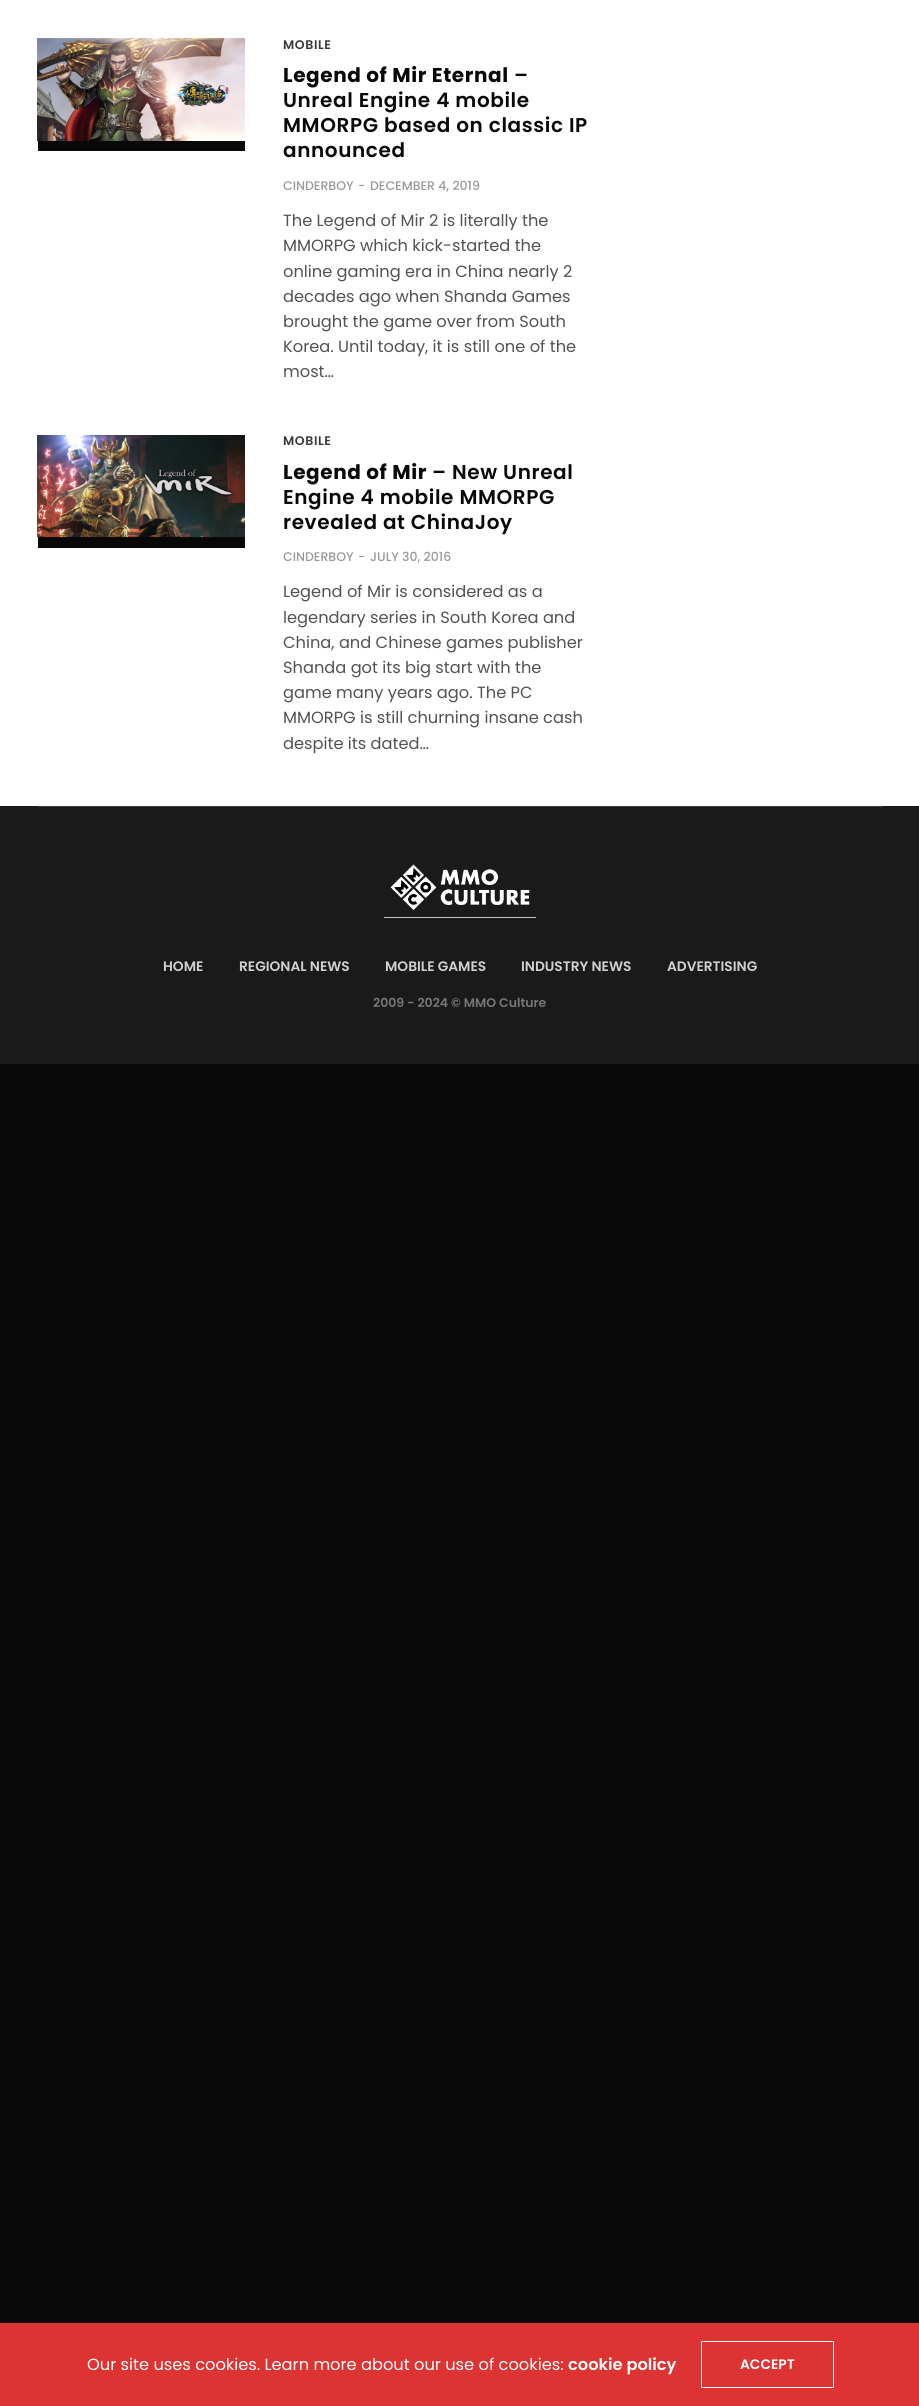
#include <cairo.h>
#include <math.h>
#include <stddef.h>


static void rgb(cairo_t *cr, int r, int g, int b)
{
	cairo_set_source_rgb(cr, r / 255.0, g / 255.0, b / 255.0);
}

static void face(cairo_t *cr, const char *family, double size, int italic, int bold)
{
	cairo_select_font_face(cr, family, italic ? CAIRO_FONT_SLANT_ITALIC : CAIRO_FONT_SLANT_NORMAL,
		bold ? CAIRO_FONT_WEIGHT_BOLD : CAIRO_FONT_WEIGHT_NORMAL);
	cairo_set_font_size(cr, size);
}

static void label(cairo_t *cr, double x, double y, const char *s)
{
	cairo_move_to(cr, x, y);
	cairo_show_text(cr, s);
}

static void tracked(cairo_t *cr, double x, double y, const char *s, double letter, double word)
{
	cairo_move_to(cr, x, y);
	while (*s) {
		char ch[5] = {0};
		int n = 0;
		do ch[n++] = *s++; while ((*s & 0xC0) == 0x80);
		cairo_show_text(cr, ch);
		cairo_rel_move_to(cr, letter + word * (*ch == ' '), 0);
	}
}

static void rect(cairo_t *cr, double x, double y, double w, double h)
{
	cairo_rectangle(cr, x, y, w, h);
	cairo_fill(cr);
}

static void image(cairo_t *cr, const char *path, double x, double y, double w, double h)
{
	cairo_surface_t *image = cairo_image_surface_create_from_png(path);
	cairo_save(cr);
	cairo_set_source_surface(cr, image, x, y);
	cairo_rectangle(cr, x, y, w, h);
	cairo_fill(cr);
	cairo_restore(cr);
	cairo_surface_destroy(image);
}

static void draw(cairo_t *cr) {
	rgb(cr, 10, 10, 10);
	cairo_paint(cr);
	rgb(cr, 255, 255, 255);
	rect(cr, 0, 0, 919, 806);
	rgb(cr, 8, 8, 8);
	rect(cr, 38, 141, 207, 10);
	image(cr, "image0.png", 37, 38, 208, 103);
	face(cr, "Poppins SemiBold", 12.5, 0, 0);
	rgb(cr, 57, 57, 57);
	tracked(cr, 283, 49, "MOBILE", 0.6, 0);
	face(cr, "Poppins", 20, 0, 1);
	rgb(cr, 8, 8, 8);
	tracked(cr, 283, 82, "Legend of Mir Eternal", 0.6, 0);
	face(cr, "Poppins SemiBold", 20, 0, 0);
	tracked(cr, 514, 82, "–", 0.6, 0);
	tracked(cr, 283, 107, "Unreal Engine 4 mobile", 0.6, 0);
	tracked(cr, 283, 132, "MMORPG based on classic IP", 0.6, 0);
	tracked(cr, 283, 157, "announced", 0.6, 0);
	face(cr, "Poppins Medium", 12.5, 0, 0);
	rgb(cr, 153, 153, 153);
	label(cr, 283, 190, "CINDERBOY");
	label(cr, 358, 190, "-");
	label(cr, 370, 190, "DECEMBER 4, 2019");
	face(cr, "Poppins", 16.25, 0, 0);
	rgb(cr, 82, 82, 82);
	label(cr, 283, 226, "The Legend of Mir 2 is literally the");
	label(cr, 283, 251, "MMORPG which kick-started the");
	label(cr, 283, 277, "online gaming era in China nearly 2");
	label(cr, 283, 302, "decades ago when Shanda Games");
	label(cr, 283, 327, "brought the game over from South");
	label(cr, 283, 352, "Korea. Until today, it is still one of the");
	label(cr, 283, 377, "most…");
	rgb(cr, 8, 8, 8);
	rect(cr, 38, 435, 207, 113);
	image(cr, "image1.png", 37, 435, 208, 103);
	face(cr, "Poppins SemiBold", 12.5, 0, 0);
	rgb(cr, 57, 57, 57);
	tracked(cr, 283, 445, "MOBILE", 0.6, 0);
	face(cr, "Poppins", 20, 0, 1);
	rgb(cr, 8, 8, 8);
	tracked(cr, 283, 479, "Legend of Mir", 0.6, 0);
	face(cr, "Poppins SemiBold", 20, 0, 0);
	tracked(cr, 432, 479, "– New Unreal", 0.6, 0);
	tracked(cr, 283, 504, "Engine 4 mobile MMORPG", 0.6, 0);
	tracked(cr, 283, 529, "revealed at ChinaJoy", 0.6, 0);
	face(cr, "Poppins Medium", 12.5, 0, 0);
	rgb(cr, 153, 153, 153);
	label(cr, 283, 561, "CINDERBOY");
	label(cr, 358, 561, "-");
	label(cr, 370, 561, "JULY 30, 2016");
	face(cr, "Poppins", 16.25, 0, 0);
	rgb(cr, 82, 82, 82);
	label(cr, 283, 597, "Legend of Mir is considered as a");
	label(cr, 283, 623, "legendary series in South Korea and");
	label(cr, 283, 648, "China, and Chinese games publisher");
	label(cr, 283, 673, "Shanda got its big start with the");
	label(cr, 283, 698, "game many years ago. The PC");
	label(cr, 283, 723, "MMORPG is still churning insane cash");
	label(cr, 283, 749, "despite its dated…");
	rgb(cr, 26, 26, 26);
	rect(cr, 0, 806, 919, 258);
	rgb(cr, 60, 60, 60);
	rect(cr, 38, 806, 845, 1);
	rgb(cr, 255, 255, 255);
	rect(cr, 384, 917, 152, 1);
	image(cr, "image2.png", 384, 858, 152, 60);
	face(cr, "Poppins SemiBold", 13.75, 0, 0);
	rgb(cr, 209, 209, 209);
	label(cr, 163, 971, "HOME");
	label(cr, 239, 971, "REGIONAL NEWS");
	label(cr, 385, 971, "MOBILE GAMES");
	label(cr, 521, 971, "INDUSTRY NEWS");
	label(cr, 667, 971, "ADVERTISING");
	face(cr, "Poppins SemiBold", 12.5, 0, 0);
	rgb(cr, 118, 118, 118);
	label(cr, 373, 1007, "2009 - 2024 © MMO Culture");
	rgb(cr, 221, 51, 51);
	rect(cr, 0, 2323, 919, 83);
	face(cr, "Poppins", 16.25, 0, 0);
	rgb(cr, 255, 255, 255);
	label(cr, 87, 2370, "Our site uses cookies. Learn more about our use of cookies:");
	face(cr, "Poppins SemiBold", 16.25, 0, 0);
	label(cr, 568, 2370, "cookie policy");
	cairo_rectangle(cr, 701.5, 2341.5, 132, 46);
	cairo_set_line_width(cr, 1);
	cairo_stroke(cr);
	face(cr, "Poppins SemiBold", 13.75, 0, 0);
	label(cr, 740, 2369, "ACCEPT");
}

int main(void) {
	cairo_surface_t *surface = cairo_image_surface_create(CAIRO_FORMAT_RGB24, 919, 2406);
	cairo_t *cr = cairo_create(surface);
	cairo_font_options_t *options = cairo_font_options_create();
	cairo_font_options_set_hint_metrics(options, CAIRO_HINT_METRICS_OFF);
	cairo_font_options_set_hint_style(options, CAIRO_HINT_STYLE_NONE);
	cairo_set_font_options(cr, options);
	cairo_set_miter_limit(cr, 4);
	draw(cr);
	cairo_surface_write_to_png(surface, "render.png");
	cairo_font_options_destroy(options);
	cairo_destroy(cr);
	cairo_surface_destroy(surface);
	return 0;
}
